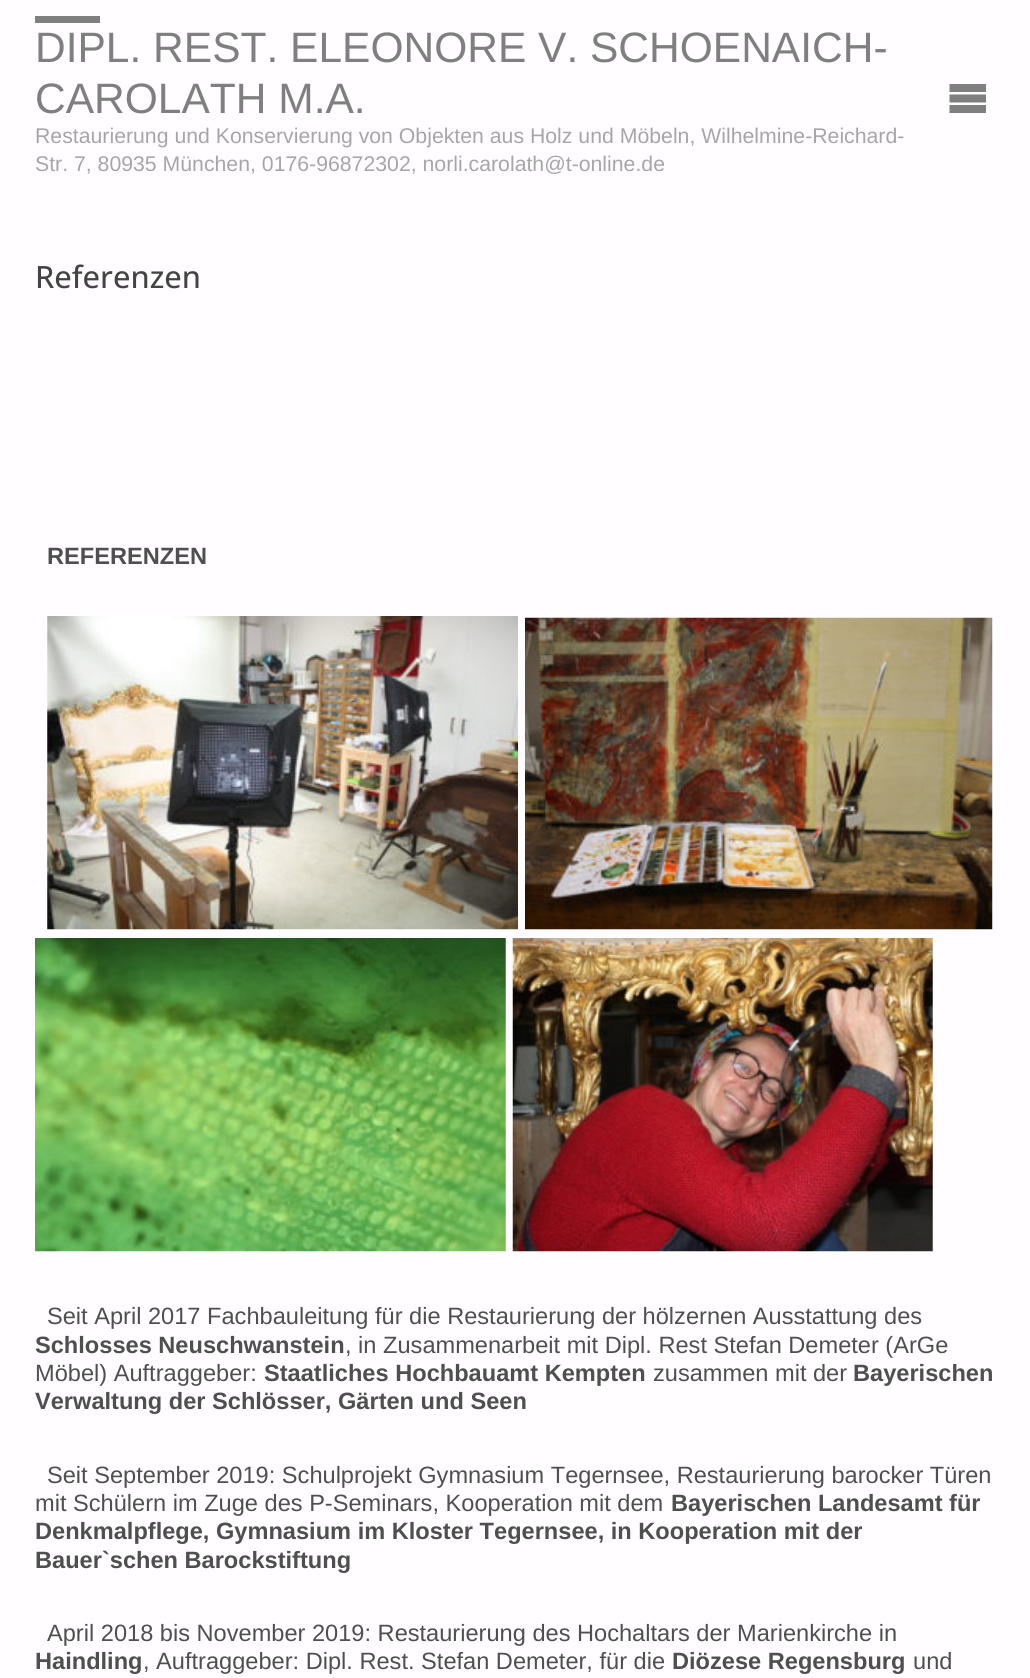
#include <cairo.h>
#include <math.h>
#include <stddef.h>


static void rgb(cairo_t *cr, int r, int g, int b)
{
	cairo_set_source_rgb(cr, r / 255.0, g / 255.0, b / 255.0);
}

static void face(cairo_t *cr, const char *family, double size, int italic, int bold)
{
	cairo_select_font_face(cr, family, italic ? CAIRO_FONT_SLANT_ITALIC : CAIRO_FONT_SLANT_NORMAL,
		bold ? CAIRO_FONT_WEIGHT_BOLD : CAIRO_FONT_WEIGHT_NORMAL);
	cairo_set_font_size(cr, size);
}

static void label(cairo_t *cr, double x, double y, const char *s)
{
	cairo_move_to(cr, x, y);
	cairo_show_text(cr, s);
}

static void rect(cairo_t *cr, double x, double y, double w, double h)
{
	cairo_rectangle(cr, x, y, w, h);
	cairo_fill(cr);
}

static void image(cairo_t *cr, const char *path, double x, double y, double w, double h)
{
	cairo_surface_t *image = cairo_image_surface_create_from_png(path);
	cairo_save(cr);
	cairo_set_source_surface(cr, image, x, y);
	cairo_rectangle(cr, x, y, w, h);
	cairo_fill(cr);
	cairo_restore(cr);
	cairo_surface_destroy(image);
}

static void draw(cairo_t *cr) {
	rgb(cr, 255, 253, 255);
	cairo_paint(cr);
	rgb(cr, 127, 127, 127);
	rect(cr, 35, 16, 65, 7);
	face(cr, "Liberation Sans", 42.5, 0, 0);
	label(cr, 35, 62, "DIPL. REST. ELEONORE V. SCHOENAICH-");
	label(cr, 35, 113, "CAROLATH M.A.");
	face(cr, "Liberation Sans", 21.25, 0, 0);
	rgb(cr, 167, 166, 167);
	label(cr, 35, 143, "Restaurierung und Konservierung von Objekten aus Holz und Möbeln, Wilhelmine-Reichard-");
	label(cr, 35, 171, "Str. 7, 80935 München, 0176-96872302, norli.carolath@t-online.de");
	rgb(cr, 127, 127, 127);
	cairo_new_path(cr);
	cairo_move_to(cr, 949.5, 84);
	cairo_line_to(cr, 986, 84);
	cairo_line_to(cr, 986, 92);
	cairo_line_to(cr, 949.5, 92);
	cairo_close_path(cr);
	cairo_move_to(cr, 949.5, 94.5);
	cairo_line_to(cr, 986, 94.5);
	cairo_line_to(cr, 986, 102.5);
	cairo_line_to(cr, 949.5, 102.5);
	cairo_close_path(cr);
	cairo_move_to(cr, 949.5, 105);
	cairo_line_to(cr, 986, 105);
	cairo_line_to(cr, 986, 113);
	cairo_line_to(cr, 949.5, 113);
	cairo_close_path(cr);
	cairo_fill(cr);
	face(cr, "Open Sans Medium", 30.75, 0, 0);
	rgb(cr, 68, 68, 68);
	label(cr, 35, 288, "Referenzen");
	face(cr, "Liberation Sans", 23.6, 0, 1);
	rgb(cr, 79, 79, 79);
	label(cr, 47, 564, "REFERENZEN");
	image(cr, "image0.png", 47, 616, 471, 314);
	image(cr, "image1.png", 525, 617, 468, 313);
	image(cr, "image2.png", 35, 938, 471, 314);
	image(cr, "image3.png", 512, 938, 421, 314);
	face(cr, "Liberation Sans", 23.6, 0, 0);
	label(cr, 47, 1324, "Seit April 2017 Fachbauleitung für die Restaurierung der hölzernen Ausstattung des");
	face(cr, "Liberation Sans", 23.6, 0, 1);
	label(cr, 35, 1353, "Schlosses Neuschwanstein");
	face(cr, "Liberation Sans", 23.6, 0, 0);
	label(cr, 345, 1353, ", in Zusammenarbeit mit Dipl. Rest Stefan Demeter (ArGe");
	label(cr, 35, 1381, "Möbel) Auftraggeber:");
	face(cr, "Liberation Sans", 23.6, 0, 1);
	label(cr, 264, 1381, "Staatliches Hochbauamt Kempten");
	face(cr, "Liberation Sans", 23.6, 0, 0);
	label(cr, 653, 1381, "zusammen mit der");
	face(cr, "Liberation Sans", 23.6, 0, 1);
	label(cr, 853, 1381, "Bayerischen");
	label(cr, 35, 1409, "Verwaltung der Schlösser, Gärten und Seen");
	face(cr, "Liberation Sans", 23.6, 0, 0);
	label(cr, 47, 1483, "Seit September 2019: Schulprojekt Gymnasium Tegernsee, Restaurierung barocker Türen");
	label(cr, 35, 1511, "mit Schülern im Zuge des P-Seminars, Kooperation mit dem");
	face(cr, "Liberation Sans", 23.6, 0, 1);
	label(cr, 671, 1511, "Bayerischen Landesamt für");
	label(cr, 35, 1539, "Denkmalpflege, Gymnasium im Kloster Tegernsee, in Kooperation mit der");
	label(cr, 35, 1568, "Bauer`schen Barockstiftung");
	face(cr, "Liberation Sans", 23.6, 0, 0);
	label(cr, 47, 1641, "April 2018 bis November 2019: Restaurierung des Hochaltars der Marienkirche in");
	face(cr, "Liberation Sans", 23.6, 0, 1);
	label(cr, 35, 1669, "Haindling");
	face(cr, "Liberation Sans", 23.6, 0, 0);
	label(cr, 143, 1669, ", Auftraggeber: Dipl. Rest. Stefan Demeter, für die");
	face(cr, "Liberation Sans", 23.6, 0, 1);
	label(cr, 672, 1669, "Diözese Regensburg");
	face(cr, "Liberation Sans", 23.6, 0, 0);
	label(cr, 913, 1669, "und");
}

int main(void) {
	cairo_surface_t *surface = cairo_image_surface_create(CAIRO_FORMAT_RGB24, 1030, 1678);
	cairo_t *cr = cairo_create(surface);
	cairo_font_options_t *options = cairo_font_options_create();
	cairo_font_options_set_hint_metrics(options, CAIRO_HINT_METRICS_OFF);
	cairo_font_options_set_hint_style(options, CAIRO_HINT_STYLE_NONE);
	cairo_set_font_options(cr, options);
	cairo_set_miter_limit(cr, 4);
	draw(cr);
	cairo_surface_write_to_png(surface, "render.png");
	cairo_font_options_destroy(options);
	cairo_destroy(cr);
	cairo_surface_destroy(surface);
	return 0;
}
